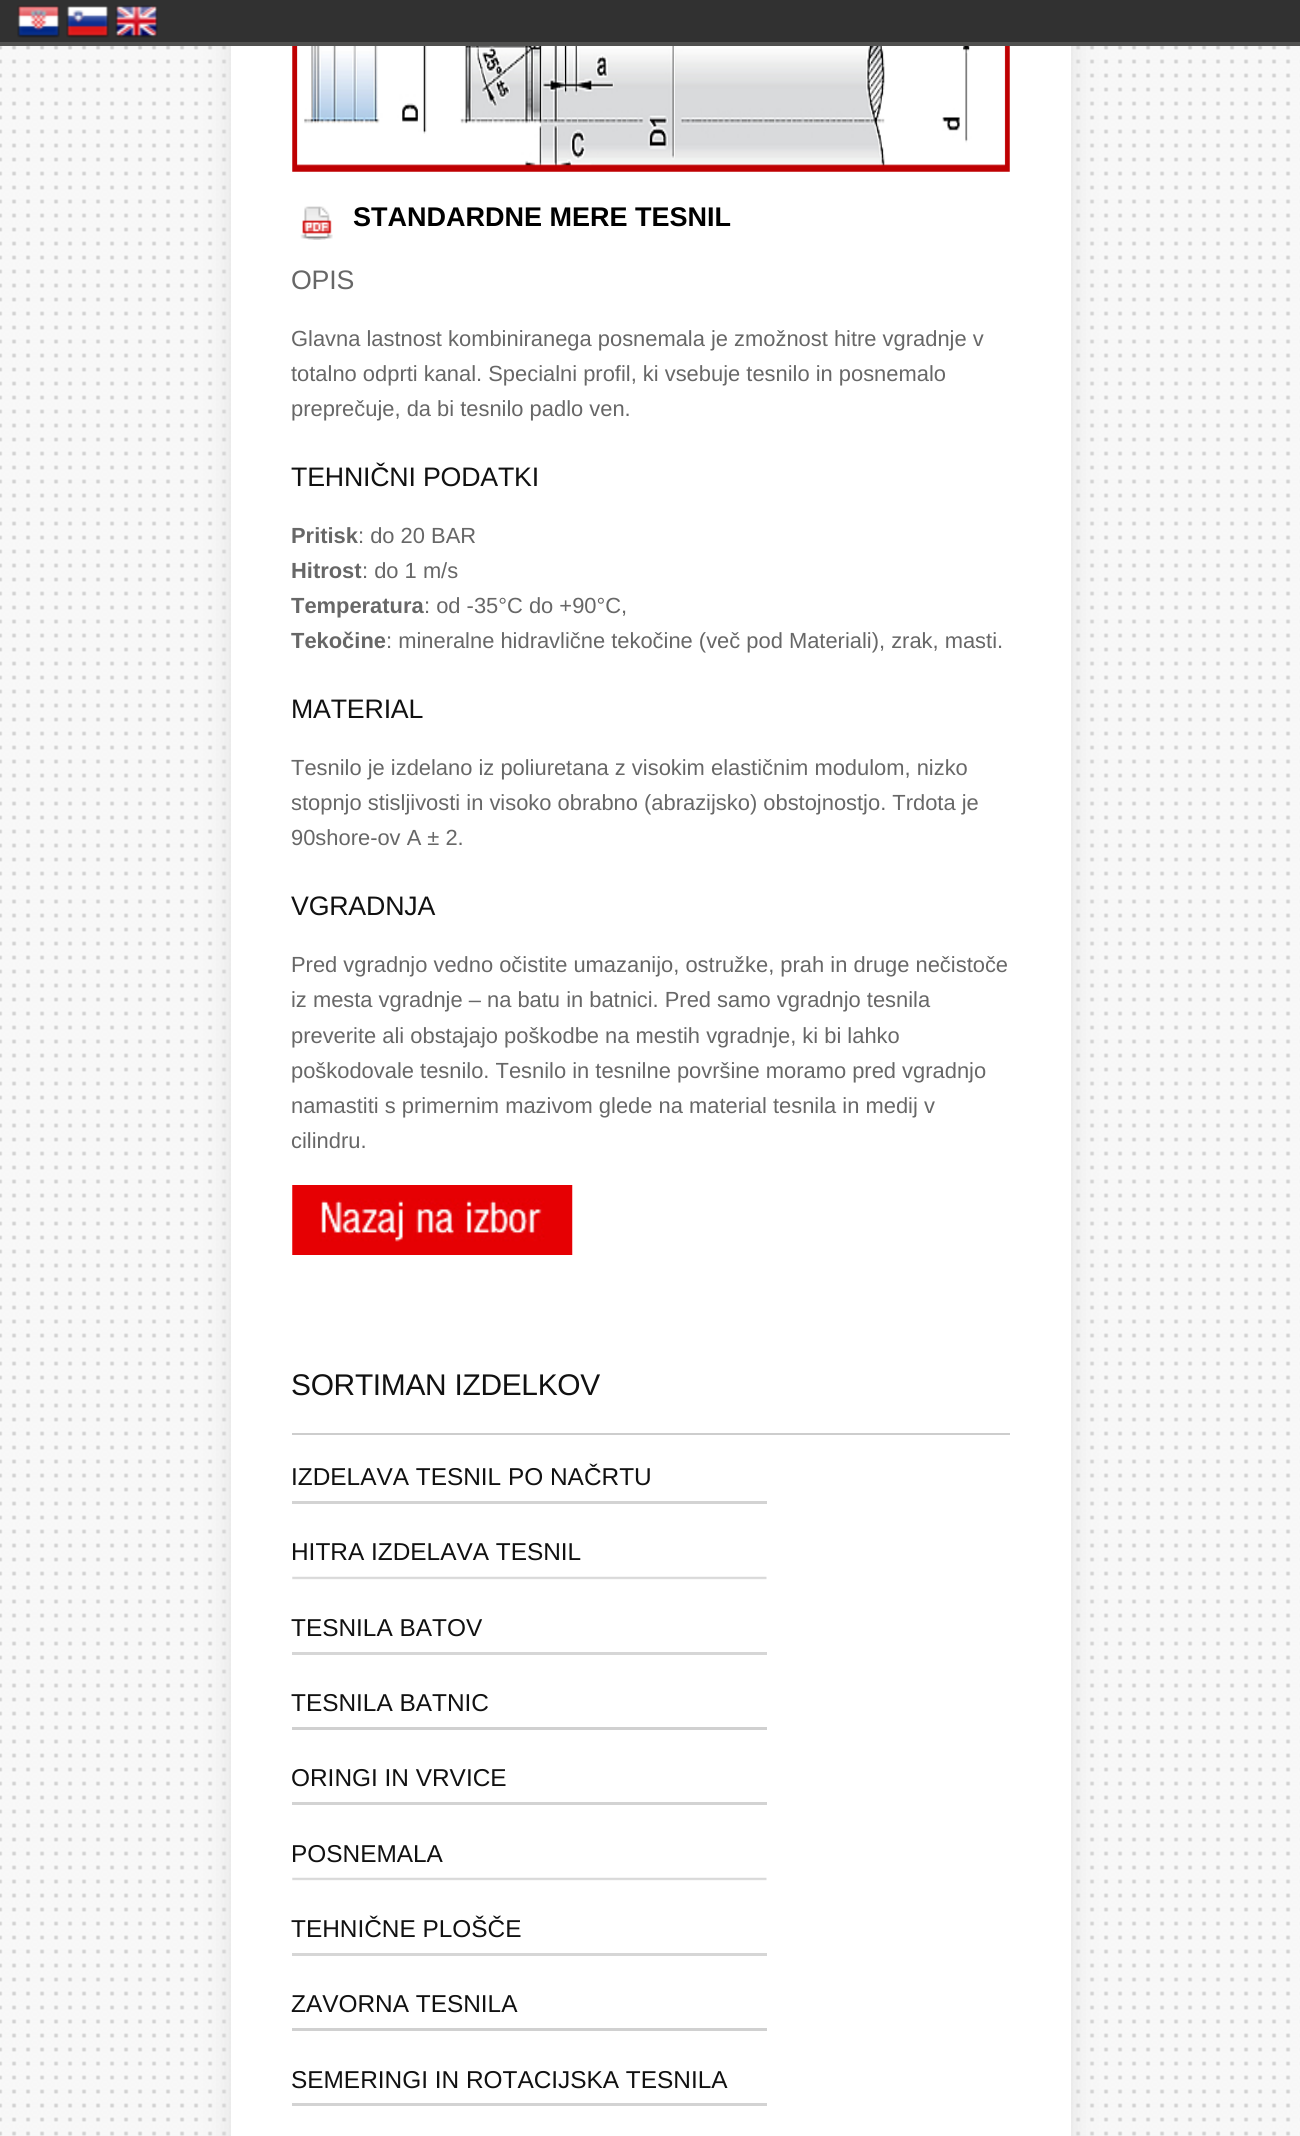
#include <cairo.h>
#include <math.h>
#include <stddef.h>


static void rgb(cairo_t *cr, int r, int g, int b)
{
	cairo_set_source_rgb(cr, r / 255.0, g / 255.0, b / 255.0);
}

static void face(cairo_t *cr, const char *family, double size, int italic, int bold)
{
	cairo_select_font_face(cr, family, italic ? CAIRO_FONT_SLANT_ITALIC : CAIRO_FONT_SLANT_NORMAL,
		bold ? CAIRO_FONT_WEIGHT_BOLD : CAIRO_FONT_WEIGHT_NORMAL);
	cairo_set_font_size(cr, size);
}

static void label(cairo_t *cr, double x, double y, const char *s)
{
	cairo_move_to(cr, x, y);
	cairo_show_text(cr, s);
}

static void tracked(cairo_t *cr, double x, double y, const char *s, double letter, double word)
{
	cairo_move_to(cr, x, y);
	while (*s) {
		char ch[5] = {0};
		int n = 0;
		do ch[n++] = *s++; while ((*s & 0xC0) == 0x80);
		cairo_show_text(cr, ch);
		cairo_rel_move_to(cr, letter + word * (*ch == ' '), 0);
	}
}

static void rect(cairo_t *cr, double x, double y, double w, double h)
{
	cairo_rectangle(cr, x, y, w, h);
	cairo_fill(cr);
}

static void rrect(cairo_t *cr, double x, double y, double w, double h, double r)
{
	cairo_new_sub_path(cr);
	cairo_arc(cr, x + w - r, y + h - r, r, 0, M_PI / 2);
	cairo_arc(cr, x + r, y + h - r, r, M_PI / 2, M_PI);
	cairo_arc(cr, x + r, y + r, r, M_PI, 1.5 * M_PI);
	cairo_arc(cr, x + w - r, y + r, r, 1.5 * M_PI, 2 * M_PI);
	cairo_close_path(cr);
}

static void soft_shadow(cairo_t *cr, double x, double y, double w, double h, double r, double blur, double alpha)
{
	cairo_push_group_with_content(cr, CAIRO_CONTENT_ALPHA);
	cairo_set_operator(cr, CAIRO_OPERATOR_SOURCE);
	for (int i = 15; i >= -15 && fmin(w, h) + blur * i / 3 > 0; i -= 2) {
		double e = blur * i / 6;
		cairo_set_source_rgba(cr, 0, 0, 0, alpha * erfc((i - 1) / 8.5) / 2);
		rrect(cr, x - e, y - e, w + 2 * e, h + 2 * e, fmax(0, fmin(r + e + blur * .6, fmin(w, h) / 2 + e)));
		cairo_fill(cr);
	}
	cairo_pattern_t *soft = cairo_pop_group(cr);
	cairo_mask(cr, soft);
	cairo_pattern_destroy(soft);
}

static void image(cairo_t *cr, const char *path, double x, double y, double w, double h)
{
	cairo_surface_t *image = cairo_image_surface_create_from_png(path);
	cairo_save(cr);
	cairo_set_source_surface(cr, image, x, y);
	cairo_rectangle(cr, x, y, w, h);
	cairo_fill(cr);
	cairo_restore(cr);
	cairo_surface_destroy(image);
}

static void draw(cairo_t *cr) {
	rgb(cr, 255, 255, 255);
	cairo_paint(cr);
	image(cr, "image0.png", 0, 46, 1300, 2090);
	rgb(cr, 224, 224, 224);
	soft_shadow(cr, 231, -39, 840, 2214, 0, 13, 1);
	rgb(cr, 49, 49, 49);
	rect(cr, 0, 0, 1300, 42);
	rgb(cr, 81, 81, 80);
	rect(cr, 0, 42, 1300, 4);
	image(cr, "image1.png", 17, 5, 43, 33);
	image(cr, "image2.png", 66, 6, 43, 32);
	image(cr, "image3.png", 115, 5, 43, 33);
	rgb(cr, 255, 255, 255);
	rect(cr, 231, 46, 840, 2090);
	image(cr, "image4.png", 292, 46, 718, 126);
	image(cr, "image5.png", 300, 206, 33, 34);
	face(cr, "Liberation Sans", 27, 0, 1);
	rgb(cr, 0, 0, 0);
	label(cr, 353, 226, "STANDARDNE MERE TESNIL");
	face(cr, "Liberation Sans", 26.75, 0, 0);
	rgb(cr, 103, 103, 103);
	tracked(cr, 291, 289, "OPIS", -0.2, 0);
	face(cr, "Liberation Sans", 21.9, 0, 0);
	label(cr, 291, 346, "Glavna lastnost kombiniranega posnemala je zmožnost hitre vgradnje v");
	label(cr, 291, 381, "totalno odprti kanal. Specialni profil, ki vsebuje tesnilo in posnemalo");
	label(cr, 291, 416, "preprečuje, da bi tesnilo padlo ven.");
	face(cr, "Liberation Sans", 26.75, 0, 0);
	rgb(cr, 17, 17, 17);
	tracked(cr, 291, 486, "TEHNIČNI PODATKI", -0.2, 0);
	face(cr, "Liberation Sans", 21.9, 0, 1);
	rgb(cr, 103, 103, 103);
	label(cr, 291, 543, "Pritisk");
	face(cr, "Liberation Sans", 21.9, 0, 0);
	label(cr, 358, 543, ": do 20 BAR");
	face(cr, "Liberation Sans", 21.9, 0, 1);
	label(cr, 291, 578, "Hitrost");
	face(cr, "Liberation Sans", 21.9, 0, 0);
	label(cr, 362, 578, ": do 1 m/s");
	face(cr, "Liberation Sans", 21.9, 0, 1);
	label(cr, 291, 613, "Temperatura");
	face(cr, "Liberation Sans", 21.9, 0, 0);
	label(cr, 424, 613, ": od -35°C do +90°C,");
	face(cr, "Liberation Sans", 21.9, 0, 1);
	label(cr, 291, 648, "Tekočine");
	face(cr, "Liberation Sans", 21.9, 0, 0);
	label(cr, 386, 648, ": mineralne hidravlične tekočine (več pod Materiali), zrak, masti.");
	face(cr, "Liberation Sans", 26.75, 0, 0);
	rgb(cr, 17, 17, 17);
	tracked(cr, 291, 718, "MATERIAL", -0.2, 0);
	face(cr, "Liberation Sans", 21.9, 0, 0);
	rgb(cr, 103, 103, 103);
	label(cr, 291, 775, "Tesnilo je izdelano iz poliuretana z visokim elastičnim modulom, nizko");
	label(cr, 291, 810, "stopnjo stisljivosti in visoko obrabno (abrazijsko) obstojnostjo. Trdota je");
	label(cr, 291, 845, "90shore-ov A ± 2.");
	face(cr, "Liberation Sans", 26.75, 0, 0);
	rgb(cr, 17, 17, 17);
	tracked(cr, 291, 915, "VGRADNJA", -0.2, 0);
	face(cr, "Liberation Sans", 21.9, 0, 0);
	rgb(cr, 103, 103, 103);
	label(cr, 291, 972, "Pred vgradnjo vedno očistite umazanijo, ostružke, prah in druge nečistoče");
	label(cr, 291, 1007, "iz mesta vgradnje – na batu in batnici. Pred samo vgradnjo tesnila");
	label(cr, 291, 1043, "preverite ali obstajajo poškodbe na mestih vgradnje, ki bi lahko");
	label(cr, 291, 1078, "poškodovale tesnilo. Tesnilo in tesnilne površine moramo pred vgradnjo");
	label(cr, 291, 1113, "namastiti s primernim mazivom glede na material tesnila in medij v");
	label(cr, 291, 1148, "cilindru.");
	image(cr, "image6.png", 292, 1185, 281, 70);
	rgb(cr, 205, 205, 205);
	rect(cr, 292, 1433, 718, 2);
	face(cr, "Liberation Sans", 29.9, 0, 0);
	rgb(cr, 17, 17, 17);
	tracked(cr, 291, 1395, "SORTIMAN IZDELKOV", -0.3, 0);
	face(cr, "Liberation Sans", 24.4, 0, 0);
	label(cr, 291, 1485, "IZDELAVA TESNIL PO NAČRTU");
	rgb(cr, 211, 211, 211);
	rect(cr, 292, 1501, 475, 3);
	rgb(cr, 17, 17, 17);
	label(cr, 291, 1560, "HITRA IZDELAVA TESNIL");
	image(cr, "image7.png", 292, 1576, 475, 4);
	label(cr, 291, 1636, "TESNILA BATOV");
	rgb(cr, 214, 214, 214);
	rect(cr, 292, 1652, 475, 3);
	rgb(cr, 17, 17, 17);
	label(cr, 291, 1711, "TESNILA BATNIC");
	rgb(cr, 208, 208, 208);
	rect(cr, 292, 1727, 475, 3);
	rgb(cr, 17, 17, 17);
	label(cr, 291, 1786, "ORINGI IN VRVICE");
	rgb(cr, 211, 211, 211);
	rect(cr, 292, 1802, 475, 3);
	rgb(cr, 17, 17, 17);
	label(cr, 291, 1862, "POSNEMALA");
	image(cr, "image7.png", 292, 1877, 475, 4);
	label(cr, 291, 1937, "TEHNIČNE PLOŠČE");
	rgb(cr, 214, 214, 214);
	rect(cr, 292, 1953, 475, 3);
	rgb(cr, 17, 17, 17);
	label(cr, 291, 2012, "ZAVORNA TESNILA");
	rgb(cr, 208, 208, 208);
	rect(cr, 292, 2028, 475, 3);
	rgb(cr, 17, 17, 17);
	label(cr, 291, 2088, "SEMERINGI IN ROTACIJSKA TESNILA");
	rgb(cr, 211, 211, 211);
	rect(cr, 292, 2103, 475, 3);
}

int main(void) {
	cairo_surface_t *surface = cairo_image_surface_create(CAIRO_FORMAT_RGB24, 1300, 2136);
	cairo_t *cr = cairo_create(surface);
	cairo_font_options_t *options = cairo_font_options_create();
	cairo_font_options_set_hint_metrics(options, CAIRO_HINT_METRICS_OFF);
	cairo_font_options_set_hint_style(options, CAIRO_HINT_STYLE_NONE);
	cairo_set_font_options(cr, options);
	cairo_set_miter_limit(cr, 4);
	draw(cr);
	cairo_surface_write_to_png(surface, "render.png");
	cairo_font_options_destroy(options);
	cairo_destroy(cr);
	cairo_surface_destroy(surface);
	return 0;
}
